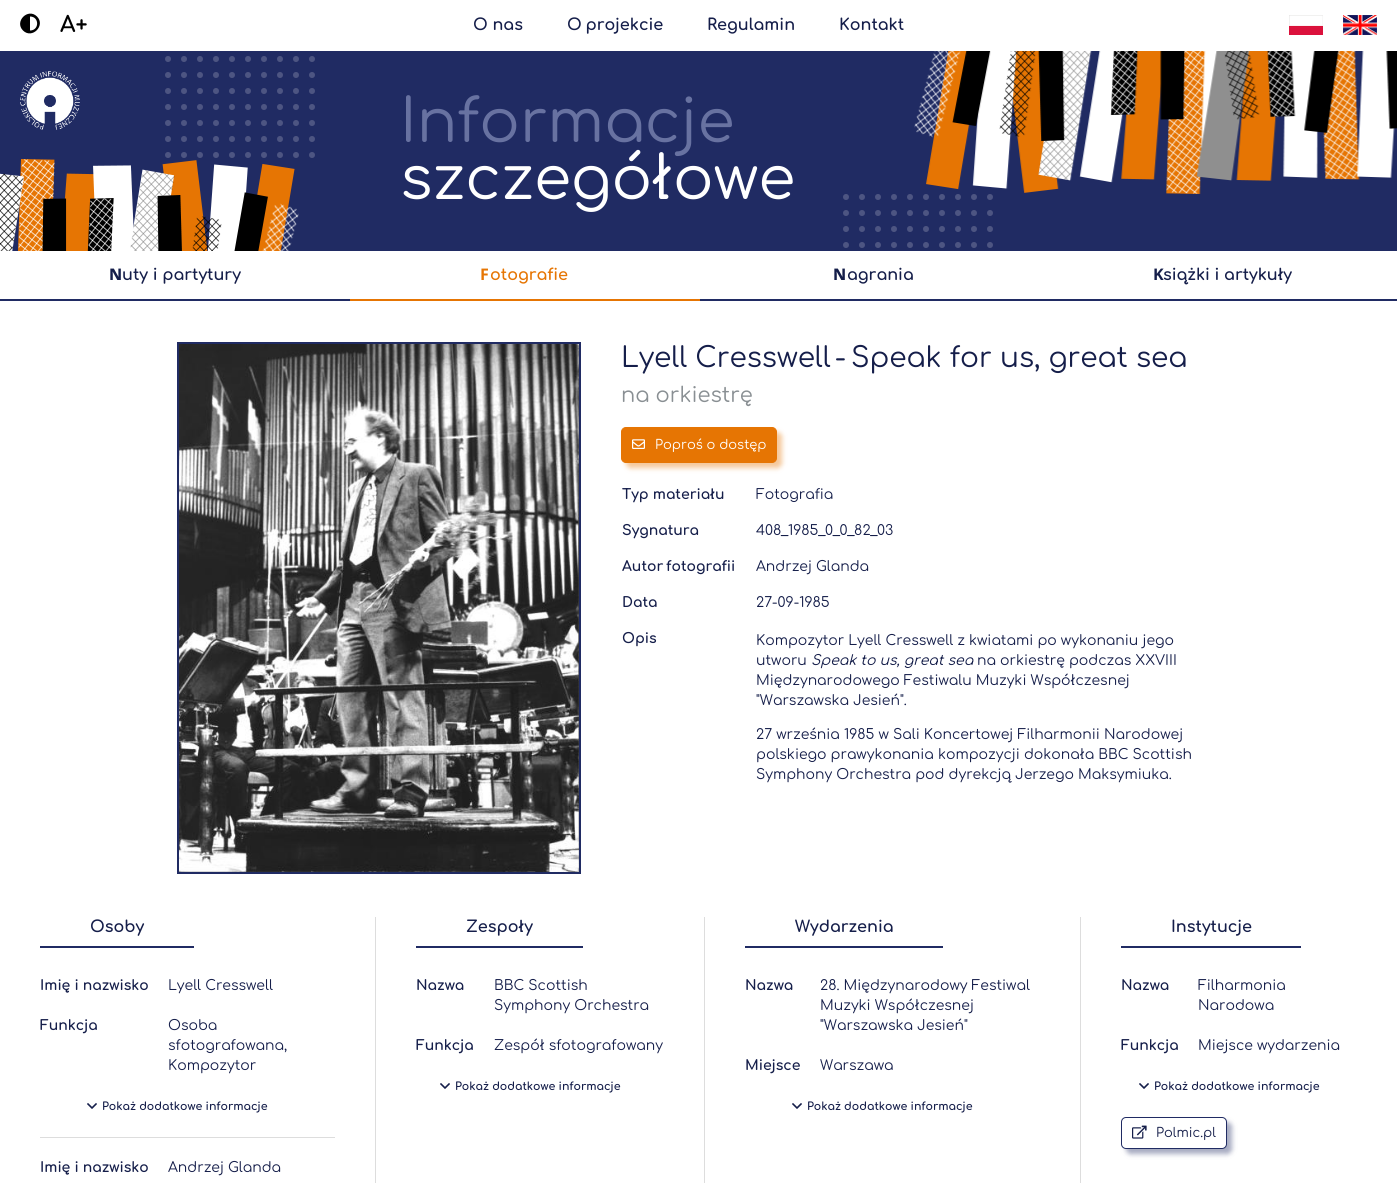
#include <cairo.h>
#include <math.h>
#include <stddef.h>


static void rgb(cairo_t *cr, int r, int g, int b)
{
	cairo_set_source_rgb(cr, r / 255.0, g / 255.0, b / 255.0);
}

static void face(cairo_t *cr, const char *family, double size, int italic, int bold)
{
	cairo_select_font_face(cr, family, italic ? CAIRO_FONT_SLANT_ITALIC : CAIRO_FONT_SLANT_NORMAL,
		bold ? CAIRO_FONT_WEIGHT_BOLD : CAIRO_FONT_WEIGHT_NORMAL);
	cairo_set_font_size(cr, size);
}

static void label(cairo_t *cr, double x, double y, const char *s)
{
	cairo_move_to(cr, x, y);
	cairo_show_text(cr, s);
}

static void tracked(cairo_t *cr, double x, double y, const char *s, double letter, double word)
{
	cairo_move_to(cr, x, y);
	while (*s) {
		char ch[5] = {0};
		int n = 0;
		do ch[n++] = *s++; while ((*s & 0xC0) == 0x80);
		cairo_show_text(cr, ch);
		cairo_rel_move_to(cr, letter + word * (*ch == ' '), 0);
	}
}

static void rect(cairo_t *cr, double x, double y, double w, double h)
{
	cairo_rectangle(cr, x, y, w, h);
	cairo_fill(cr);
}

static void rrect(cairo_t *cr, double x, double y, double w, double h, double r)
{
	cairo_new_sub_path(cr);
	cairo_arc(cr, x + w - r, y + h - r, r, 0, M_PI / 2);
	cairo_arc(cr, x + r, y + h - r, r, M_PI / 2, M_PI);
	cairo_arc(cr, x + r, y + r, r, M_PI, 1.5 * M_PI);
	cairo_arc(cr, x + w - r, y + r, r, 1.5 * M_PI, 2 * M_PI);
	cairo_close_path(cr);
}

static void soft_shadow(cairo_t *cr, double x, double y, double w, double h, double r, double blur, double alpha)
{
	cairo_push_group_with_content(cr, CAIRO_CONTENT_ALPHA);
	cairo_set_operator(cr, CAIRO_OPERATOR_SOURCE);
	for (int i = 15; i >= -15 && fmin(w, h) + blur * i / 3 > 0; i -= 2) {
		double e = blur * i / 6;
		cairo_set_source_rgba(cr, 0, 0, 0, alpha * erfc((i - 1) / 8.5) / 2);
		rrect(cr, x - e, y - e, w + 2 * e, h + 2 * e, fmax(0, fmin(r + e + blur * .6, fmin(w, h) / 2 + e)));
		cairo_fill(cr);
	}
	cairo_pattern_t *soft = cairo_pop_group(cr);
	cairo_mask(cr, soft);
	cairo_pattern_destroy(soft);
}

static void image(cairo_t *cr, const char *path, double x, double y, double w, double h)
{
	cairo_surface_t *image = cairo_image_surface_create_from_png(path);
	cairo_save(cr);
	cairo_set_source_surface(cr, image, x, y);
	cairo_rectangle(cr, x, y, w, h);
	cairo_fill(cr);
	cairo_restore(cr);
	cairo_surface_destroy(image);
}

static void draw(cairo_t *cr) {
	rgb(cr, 255, 255, 255);
	cairo_paint(cr);
	rgb(cr, 0, 0, 0);
	cairo_new_path(cr);
	cairo_move_to(cr, 23, 30.5);
	cairo_curve_to(cr, 14, 21.5, 28, 7.5, 37, 16.5);
	cairo_curve_to(cr, 46, 25.5, 32, 39.5, 23, 30.5);
	cairo_close_path(cr);
	cairo_move_to(cr, 30, 30.5);
	cairo_curve_to(cr, 39.5, 30.5, 39.5, 16.5, 30, 16.5);
	cairo_close_path(cr);
	cairo_fill(cr);
	face(cr, "Comfortaa", 22, 0, 1);
	label(cr, 60, 32, "A+");
	face(cr, "Comfortaa", 16, 0, 1);
	rgb(cr, 21, 30, 74);
	label(cr, 473, 30, "O nas");
	tracked(cr, 567, 30, "O projekcie", 0, -1);
	label(cr, 707, 30, "Regulamin");
	label(cr, 839, 30, "Kontakt");
	image(cr, "image0.png", 1289, 15, 34, 20);
	image(cr, "image1.png", 1343, 15, 34, 20);
	rgb(cr, 32, 43, 99);
	rect(cr, 0, 51, 1397, 200);
	image(cr, "image2.png", 20, 71, 60, 59);
	rgb(cr, 77, 85, 130);
	cairo_arc(cr, 168, 59, 3, 0, 2 * M_PI);
	cairo_fill(cr);
	cairo_arc(cr, 184, 59, 3, 0, 2 * M_PI);
	cairo_fill(cr);
	cairo_arc(cr, 200, 59, 3, 0, 2 * M_PI);
	cairo_fill(cr);
	cairo_arc(cr, 216, 59, 3, 0, 2 * M_PI);
	cairo_fill(cr);
	cairo_arc(cr, 232, 59, 3, 0, 2 * M_PI);
	cairo_fill(cr);
	cairo_arc(cr, 248, 59, 3, 0, 2 * M_PI);
	cairo_fill(cr);
	cairo_arc(cr, 264, 59, 3, 0, 2 * M_PI);
	cairo_fill(cr);
	cairo_arc(cr, 280, 59, 3, 0, 2 * M_PI);
	cairo_fill(cr);
	cairo_arc(cr, 296, 59, 3, 0, 2 * M_PI);
	cairo_fill(cr);
	cairo_arc(cr, 312, 59, 3, 0, 2 * M_PI);
	cairo_fill(cr);
	cairo_arc(cr, 168, 75, 3, 0, 2 * M_PI);
	cairo_fill(cr);
	cairo_arc(cr, 184, 75, 3, 0, 2 * M_PI);
	cairo_fill(cr);
	cairo_arc(cr, 200, 75, 3, 0, 2 * M_PI);
	cairo_fill(cr);
	cairo_arc(cr, 216, 75, 3, 0, 2 * M_PI);
	cairo_fill(cr);
	cairo_arc(cr, 232, 75, 3, 0, 2 * M_PI);
	cairo_fill(cr);
	cairo_arc(cr, 248, 75, 3, 0, 2 * M_PI);
	cairo_fill(cr);
	cairo_arc(cr, 264, 75, 3, 0, 2 * M_PI);
	cairo_fill(cr);
	cairo_arc(cr, 280, 75, 3, 0, 2 * M_PI);
	cairo_fill(cr);
	cairo_arc(cr, 296, 75, 3, 0, 2 * M_PI);
	cairo_fill(cr);
	cairo_arc(cr, 312, 75, 3, 0, 2 * M_PI);
	cairo_fill(cr);
	cairo_arc(cr, 168, 91, 3, 0, 2 * M_PI);
	cairo_fill(cr);
	cairo_arc(cr, 184, 91, 3, 0, 2 * M_PI);
	cairo_fill(cr);
	cairo_arc(cr, 200, 91, 3, 0, 2 * M_PI);
	cairo_fill(cr);
	cairo_arc(cr, 216, 91, 3, 0, 2 * M_PI);
	cairo_fill(cr);
	cairo_arc(cr, 232, 91, 3, 0, 2 * M_PI);
	cairo_fill(cr);
	cairo_arc(cr, 248, 91, 3, 0, 2 * M_PI);
	cairo_fill(cr);
	cairo_arc(cr, 264, 91, 3, 0, 2 * M_PI);
	cairo_fill(cr);
	cairo_arc(cr, 280, 91, 3, 0, 2 * M_PI);
	cairo_fill(cr);
	cairo_arc(cr, 296, 91, 3, 0, 2 * M_PI);
	cairo_fill(cr);
	cairo_arc(cr, 312, 91, 3, 0, 2 * M_PI);
	cairo_fill(cr);
	cairo_arc(cr, 168, 107, 3, 0, 2 * M_PI);
	cairo_fill(cr);
	cairo_arc(cr, 184, 107, 3, 0, 2 * M_PI);
	cairo_fill(cr);
	cairo_arc(cr, 200, 107, 3, 0, 2 * M_PI);
	cairo_fill(cr);
	cairo_arc(cr, 216, 107, 3, 0, 2 * M_PI);
	cairo_fill(cr);
	cairo_arc(cr, 232, 107, 3, 0, 2 * M_PI);
	cairo_fill(cr);
	cairo_arc(cr, 248, 107, 3, 0, 2 * M_PI);
	cairo_fill(cr);
	cairo_arc(cr, 264, 107, 3, 0, 2 * M_PI);
	cairo_fill(cr);
	cairo_arc(cr, 280, 107, 3, 0, 2 * M_PI);
	cairo_fill(cr);
	cairo_arc(cr, 296, 107, 3, 0, 2 * M_PI);
	cairo_fill(cr);
	cairo_arc(cr, 312, 107, 3, 0, 2 * M_PI);
	cairo_fill(cr);
	cairo_arc(cr, 168, 123, 3, 0, 2 * M_PI);
	cairo_fill(cr);
	cairo_arc(cr, 184, 123, 3, 0, 2 * M_PI);
	cairo_fill(cr);
	cairo_arc(cr, 200, 123, 3, 0, 2 * M_PI);
	cairo_fill(cr);
	cairo_arc(cr, 216, 123, 3, 0, 2 * M_PI);
	cairo_fill(cr);
	cairo_arc(cr, 232, 123, 3, 0, 2 * M_PI);
	cairo_fill(cr);
	cairo_arc(cr, 248, 123, 3, 0, 2 * M_PI);
	cairo_fill(cr);
	cairo_arc(cr, 264, 123, 3, 0, 2 * M_PI);
	cairo_fill(cr);
	cairo_arc(cr, 280, 123, 3, 0, 2 * M_PI);
	cairo_fill(cr);
	cairo_arc(cr, 296, 123, 3, 0, 2 * M_PI);
	cairo_fill(cr);
	cairo_arc(cr, 312, 123, 3, 0, 2 * M_PI);
	cairo_fill(cr);
	cairo_arc(cr, 168, 139, 3, 0, 2 * M_PI);
	cairo_fill(cr);
	cairo_arc(cr, 184, 139, 3, 0, 2 * M_PI);
	cairo_fill(cr);
	cairo_arc(cr, 200, 139, 3, 0, 2 * M_PI);
	cairo_fill(cr);
	cairo_arc(cr, 216, 139, 3, 0, 2 * M_PI);
	cairo_fill(cr);
	cairo_arc(cr, 232, 139, 3, 0, 2 * M_PI);
	cairo_fill(cr);
	cairo_arc(cr, 248, 139, 3, 0, 2 * M_PI);
	cairo_fill(cr);
	cairo_arc(cr, 264, 139, 3, 0, 2 * M_PI);
	cairo_fill(cr);
	cairo_arc(cr, 280, 139, 3, 0, 2 * M_PI);
	cairo_fill(cr);
	cairo_arc(cr, 296, 139, 3, 0, 2 * M_PI);
	cairo_fill(cr);
	cairo_arc(cr, 312, 139, 3, 0, 2 * M_PI);
	cairo_fill(cr);
	cairo_arc(cr, 168, 155, 3, 0, 2 * M_PI);
	cairo_fill(cr);
	cairo_arc(cr, 184, 155, 3, 0, 2 * M_PI);
	cairo_fill(cr);
	cairo_arc(cr, 200, 155, 3, 0, 2 * M_PI);
	cairo_fill(cr);
	cairo_arc(cr, 216, 155, 3, 0, 2 * M_PI);
	cairo_fill(cr);
	cairo_arc(cr, 232, 155, 3, 0, 2 * M_PI);
	cairo_fill(cr);
	cairo_arc(cr, 248, 155, 3, 0, 2 * M_PI);
	cairo_fill(cr);
	cairo_arc(cr, 264, 155, 3, 0, 2 * M_PI);
	cairo_fill(cr);
	cairo_arc(cr, 280, 155, 3, 0, 2 * M_PI);
	cairo_fill(cr);
	cairo_arc(cr, 296, 155, 3, 0, 2 * M_PI);
	cairo_fill(cr);
	cairo_arc(cr, 312, 155, 3, 0, 2 * M_PI);
	cairo_fill(cr);
	face(cr, "Comfortaa", 60, 0, 0);
	rgb(cr, 104, 114, 161);
	label(cr, 400, 142, "Informacje");
	rgb(cr, 255, 255, 255);
	label(cr, 400, 199, "szczegółowe");
	image(cr, "image3.png", 914, 51, 483, 143);
	image(cr, "image4.png", 0, 159, 299, 92);
	rgb(cr, 77, 85, 130);
	cairo_arc(cr, 846, 197, 3, 0, 2 * M_PI);
	cairo_fill(cr);
	cairo_arc(cr, 862, 197, 3, 0, 2 * M_PI);
	cairo_fill(cr);
	cairo_arc(cr, 878, 197, 3, 0, 2 * M_PI);
	cairo_fill(cr);
	cairo_arc(cr, 894, 197, 3, 0, 2 * M_PI);
	cairo_fill(cr);
	cairo_arc(cr, 910, 197, 3, 0, 2 * M_PI);
	cairo_fill(cr);
	cairo_arc(cr, 926, 197, 3, 0, 2 * M_PI);
	cairo_fill(cr);
	cairo_arc(cr, 942, 197, 3, 0, 2 * M_PI);
	cairo_fill(cr);
	cairo_arc(cr, 958, 197, 3, 0, 2 * M_PI);
	cairo_fill(cr);
	cairo_arc(cr, 974, 197, 3, 0, 2 * M_PI);
	cairo_fill(cr);
	cairo_arc(cr, 990, 197, 3, 0, 2 * M_PI);
	cairo_fill(cr);
	cairo_arc(cr, 846, 213, 3, 0, 2 * M_PI);
	cairo_fill(cr);
	cairo_arc(cr, 862, 213, 3, 0, 2 * M_PI);
	cairo_fill(cr);
	cairo_arc(cr, 878, 213, 3, 0, 2 * M_PI);
	cairo_fill(cr);
	cairo_arc(cr, 894, 213, 3, 0, 2 * M_PI);
	cairo_fill(cr);
	cairo_arc(cr, 910, 213, 3, 0, 2 * M_PI);
	cairo_fill(cr);
	cairo_arc(cr, 926, 213, 3, 0, 2 * M_PI);
	cairo_fill(cr);
	cairo_arc(cr, 942, 213, 3, 0, 2 * M_PI);
	cairo_fill(cr);
	cairo_arc(cr, 958, 213, 3, 0, 2 * M_PI);
	cairo_fill(cr);
	cairo_arc(cr, 974, 213, 3, 0, 2 * M_PI);
	cairo_fill(cr);
	cairo_arc(cr, 990, 213, 3, 0, 2 * M_PI);
	cairo_fill(cr);
	cairo_arc(cr, 846, 229, 3, 0, 2 * M_PI);
	cairo_fill(cr);
	cairo_arc(cr, 862, 229, 3, 0, 2 * M_PI);
	cairo_fill(cr);
	cairo_arc(cr, 878, 229, 3, 0, 2 * M_PI);
	cairo_fill(cr);
	cairo_arc(cr, 894, 229, 3, 0, 2 * M_PI);
	cairo_fill(cr);
	cairo_arc(cr, 910, 229, 3, 0, 2 * M_PI);
	cairo_fill(cr);
	cairo_arc(cr, 926, 229, 3, 0, 2 * M_PI);
	cairo_fill(cr);
	cairo_arc(cr, 942, 229, 3, 0, 2 * M_PI);
	cairo_fill(cr);
	cairo_arc(cr, 958, 229, 3, 0, 2 * M_PI);
	cairo_fill(cr);
	cairo_arc(cr, 974, 229, 3, 0, 2 * M_PI);
	cairo_fill(cr);
	cairo_arc(cr, 990, 229, 3, 0, 2 * M_PI);
	cairo_fill(cr);
	cairo_arc(cr, 846, 245, 3, 0, 2 * M_PI);
	cairo_fill(cr);
	cairo_arc(cr, 862, 245, 3, 0, 2 * M_PI);
	cairo_fill(cr);
	cairo_arc(cr, 878, 245, 3, 0, 2 * M_PI);
	cairo_fill(cr);
	cairo_arc(cr, 894, 245, 3, 0, 2 * M_PI);
	cairo_fill(cr);
	cairo_arc(cr, 910, 245, 3, 0, 2 * M_PI);
	cairo_fill(cr);
	cairo_arc(cr, 926, 245, 3, 0, 2 * M_PI);
	cairo_fill(cr);
	cairo_arc(cr, 942, 245, 3, 0, 2 * M_PI);
	cairo_fill(cr);
	cairo_arc(cr, 958, 245, 3, 0, 2 * M_PI);
	cairo_fill(cr);
	cairo_arc(cr, 974, 245, 3, 0, 2 * M_PI);
	cairo_fill(cr);
	cairo_arc(cr, 990, 245, 3, 0, 2 * M_PI);
	cairo_fill(cr);
	rgb(cr, 230, 117, 3);
	rect(cr, 348, 299, 352, 2);
	rgb(cr, 32, 43, 99);
	rect(cr, 0, 299, 350, 2);
	face(cr, "Noto Sans ExtraBold", 16, 0, 0);
	rgb(cr, 21, 30, 74);
	label(cr, 109, 280, "N");
	face(cr, "Comfortaa", 16, 0, 1);
	label(cr, 122, 280, "uty i partytury");
	face(cr, "Noto Sans", 16, 0, 1);
	rgb(cr, 230, 117, 3);
	label(cr, 480, 280, "F");
	face(cr, "Comfortaa", 16, 0, 1);
	label(cr, 490, 280, "otografie");
	face(cr, "Noto Sans ExtraBold", 16, 0, 0);
	rgb(cr, 21, 30, 74);
	label(cr, 833, 280, "N");
	face(cr, "Comfortaa", 16, 0, 1);
	label(cr, 847, 280, "agrania");
	face(cr, "Noto Sans", 16, 0, 1);
	label(cr, 1153, 280, "K");
	face(cr, "Comfortaa", 16, 0, 1);
	label(cr, 1163, 280, "siążki i artykuły");
	rgb(cr, 32, 43, 99);
	rect(cr, 700, 299, 697, 2);
	cairo_rectangle(cr, 178, 343, 402, 530);
	cairo_stroke(cr);
	image(cr, "image5.png", 179, 344, 400, 528);
	face(cr, "Comfortaa", 28, 0, 0);
	rgb(cr, 21, 30, 74);
	label(cr, 621, 367, "Lyell Cresswell");
	label(cr, 835, 367, "-");
	label(cr, 851, 367, "Speak for us, great sea");
	face(cr, "Comfortaa", 21, 0, 0);
	rgb(cr, 137, 143, 147);
	label(cr, 621, 402, "na orkiestrę");
	rgb(cr, 230, 117, 3);
	soft_shadow(cr, 626, 432, 156, 36, 5, 2.5, 0.4);
	rgb(cr, 230, 117, 3);
	rrect(cr, 621.5, 427.5, 155, 35, 4.5);
	cairo_fill_preserve(cr);
	cairo_set_line_width(cr, 1);
	cairo_stroke(cr);
	image(cr, "image6.png", 632, 439, 13, 10);
	face(cr, "Comfortaa", 13, 0, 0);
	rgb(cr, 255, 255, 255);
	label(cr, 655, 449, "Poproś o dostęp");
	face(cr, "Comfortaa", 14, 0, 1);
	rgb(cr, 21, 30, 74);
	label(cr, 622, 499, "Typ materiału");
	face(cr, "Comfortaa", 14, 0, 0);
	label(cr, 756, 499, "Fotografia");
	face(cr, "Comfortaa", 14, 0, 1);
	label(cr, 622, 535, "Sygnatura");
	face(cr, "Comfortaa", 14, 0, 0);
	label(cr, 756, 535, "408_1985_0_0_82_03");
	face(cr, "Comfortaa", 14, 0, 1);
	tracked(cr, 622, 571, "Autor fotografii", 0, -1);
	face(cr, "Comfortaa", 14, 0, 0);
	label(cr, 756, 571, "Andrzej Glanda");
	face(cr, "Comfortaa", 14, 0, 1);
	label(cr, 622, 607, "Data");
	face(cr, "Comfortaa", 14, 0, 0);
	label(cr, 756, 607, "27-09-1985");
	face(cr, "Comfortaa", 14, 0, 1);
	label(cr, 622, 643, "Opis");
	face(cr, "Comfortaa", 14, 0, 0);
	label(cr, 756, 645, "Kompozytor Lyell Cresswell z kwiatami po wykonaniu jego");
	label(cr, 756, 665, "utworu");
	face(cr, "Comfortaa", 14, 1, 0);
	label(cr, 811, 665, "Speak to us, great sea");
	face(cr, "Comfortaa", 14, 0, 0);
	label(cr, 977, 665, "na orkiestrę podczas XXVIII");
	label(cr, 756, 685, "Międzynarodowego Festiwalu Muzyki Współczesnej");
	label(cr, 756, 705, "\"Warszawska Jesień\".");
	label(cr, 756, 739, "27 września 1985 w Sali Koncertowej Filharmonii Narodowej");
	label(cr, 756, 759, "polskiego prawykonania kompozycji dokonała BBC Scottish");
	label(cr, 756, 779, "Symphony Orchestra pod dyrekcją Jerzego Maksymiuka.");
	rgb(cr, 221, 221, 221);
	rect(cr, 375, 917, 1, 266);
	face(cr, "Comfortaa", 16, 0, 1);
	rgb(cr, 21, 30, 74);
	label(cr, 90, 932, "Osoby");
	rgb(cr, 32, 43, 99);
	rect(cr, 40, 946, 154, 2);
	rgb(cr, 221, 221, 221);
	rect(cr, 40, 1137, 295, 1);
	face(cr, "Comfortaa", 14, 0, 1);
	rgb(cr, 21, 30, 74);
	label(cr, 40, 990, "Imię i nazwisko");
	face(cr, "Comfortaa", 14, 0, 0);
	label(cr, 168, 990, "Lyell Cresswell");
	face(cr, "Comfortaa", 14, 0, 1);
	label(cr, 40, 1030, "Funkcja");
	face(cr, "Comfortaa", 14, 0, 0);
	label(cr, 168, 1030, "Osoba");
	label(cr, 168, 1050, "sfotografowana,");
	label(cr, 168, 1070, "Kompozytor");
	image(cr, "image7.png", 87, 1103, 10, 6);
	face(cr, "Comfortaa", 11, 0, 1);
	label(cr, 102, 1110, "Pokaż dodatkowe informacje");
	face(cr, "Comfortaa", 14, 0, 1);
	label(cr, 40, 1172, "Imię i nazwisko");
	face(cr, "Comfortaa", 14, 0, 0);
	label(cr, 168, 1172, "Andrzej Glanda");
	rgb(cr, 221, 221, 221);
	rect(cr, 704, 917, 1, 266);
	face(cr, "Comfortaa", 16, 0, 1);
	rgb(cr, 21, 30, 74);
	label(cr, 466, 932, "Zespoły");
	rgb(cr, 32, 43, 99);
	rect(cr, 416, 946, 167, 2);
	face(cr, "Comfortaa", 14, 0, 1);
	rgb(cr, 21, 30, 74);
	label(cr, 416, 990, "Nazwa");
	face(cr, "Comfortaa", 14, 0, 0);
	label(cr, 494, 990, "BBC Scottish");
	label(cr, 494, 1010, "Symphony Orchestra");
	face(cr, "Comfortaa", 14, 0, 1);
	label(cr, 416, 1050, "Funkcja");
	face(cr, "Comfortaa", 14, 0, 0);
	label(cr, 494, 1050, "Zespół sfotografowany");
	image(cr, "image7.png", 440, 1083, 10, 6);
	face(cr, "Comfortaa", 11, 0, 1);
	label(cr, 455, 1090, "Pokaż dodatkowe informacje");
	rgb(cr, 221, 221, 221);
	rect(cr, 1080, 917, 1, 266);
	face(cr, "Comfortaa", 16, 0, 1);
	rgb(cr, 21, 30, 74);
	label(cr, 795, 932, "Wydarzenia");
	rgb(cr, 32, 43, 99);
	rect(cr, 745, 946, 198, 2);
	face(cr, "Comfortaa", 14, 0, 1);
	rgb(cr, 21, 30, 74);
	label(cr, 745, 990, "Nazwa");
	face(cr, "Comfortaa", 14, 0, 0);
	label(cr, 820, 990, "28. Międzynarodowy Festiwal");
	label(cr, 820, 1010, "Muzyki Współczesnej");
	label(cr, 820, 1030, "\"Warszawska Jesień\"");
	face(cr, "Comfortaa", 14, 0, 1);
	label(cr, 745, 1070, "Miejsce");
	face(cr, "Comfortaa", 14, 0, 0);
	label(cr, 820, 1070, "Warszawa");
	image(cr, "image7.png", 792, 1103, 10, 6);
	face(cr, "Comfortaa", 11, 0, 1);
	label(cr, 807, 1110, "Pokaż dodatkowe informacje");
	face(cr, "Comfortaa", 16, 0, 1);
	label(cr, 1171, 932, "Instytucje");
	rgb(cr, 32, 43, 99);
	rect(cr, 1121, 946, 180, 2);
	face(cr, "Comfortaa", 14, 0, 1);
	rgb(cr, 21, 30, 74);
	label(cr, 1121, 990, "Nazwa");
	face(cr, "Comfortaa", 14, 0, 0);
	label(cr, 1198, 990, "Filharmonia");
	label(cr, 1198, 1010, "Narodowa");
	face(cr, "Comfortaa", 14, 0, 1);
	label(cr, 1121, 1050, "Funkcja");
	face(cr, "Comfortaa", 14, 0, 0);
	label(cr, 1198, 1050, "Miejsce wydarzenia");
	image(cr, "image7.png", 1139, 1083, 10, 6);
	face(cr, "Comfortaa", 11, 0, 1);
	label(cr, 1154, 1090, "Pokaż dodatkowe informacje");
	rgb(cr, 32, 43, 99);
	soft_shadow(cr, 1126, 1122, 106, 32, 5, 2.5, 0.4);
	rgb(cr, 255, 255, 255);
	rrect(cr, 1121.5, 1117.5, 105, 31, 4.5);
	cairo_fill_preserve(cr);
	rgb(cr, 32, 43, 99);
	cairo_stroke(cr);
	image(cr, "image8.png", 1132, 1125, 15, 14);
	face(cr, "Comfortaa", 13, 0, 0);
	rgb(cr, 21, 30, 74);
	label(cr, 1156, 1137, "Polmic.pl");
}

int main(void) {
	cairo_surface_t *surface = cairo_image_surface_create(CAIRO_FORMAT_RGB24, 1397, 1183);
	cairo_t *cr = cairo_create(surface);
	cairo_font_options_t *options = cairo_font_options_create();
	cairo_font_options_set_hint_metrics(options, CAIRO_HINT_METRICS_OFF);
	cairo_font_options_set_hint_style(options, CAIRO_HINT_STYLE_NONE);
	cairo_set_font_options(cr, options);
	cairo_set_miter_limit(cr, 4);
	draw(cr);
	cairo_surface_write_to_png(surface, "render.png");
	cairo_font_options_destroy(options);
	cairo_destroy(cr);
	cairo_surface_destroy(surface);
	return 0;
}
